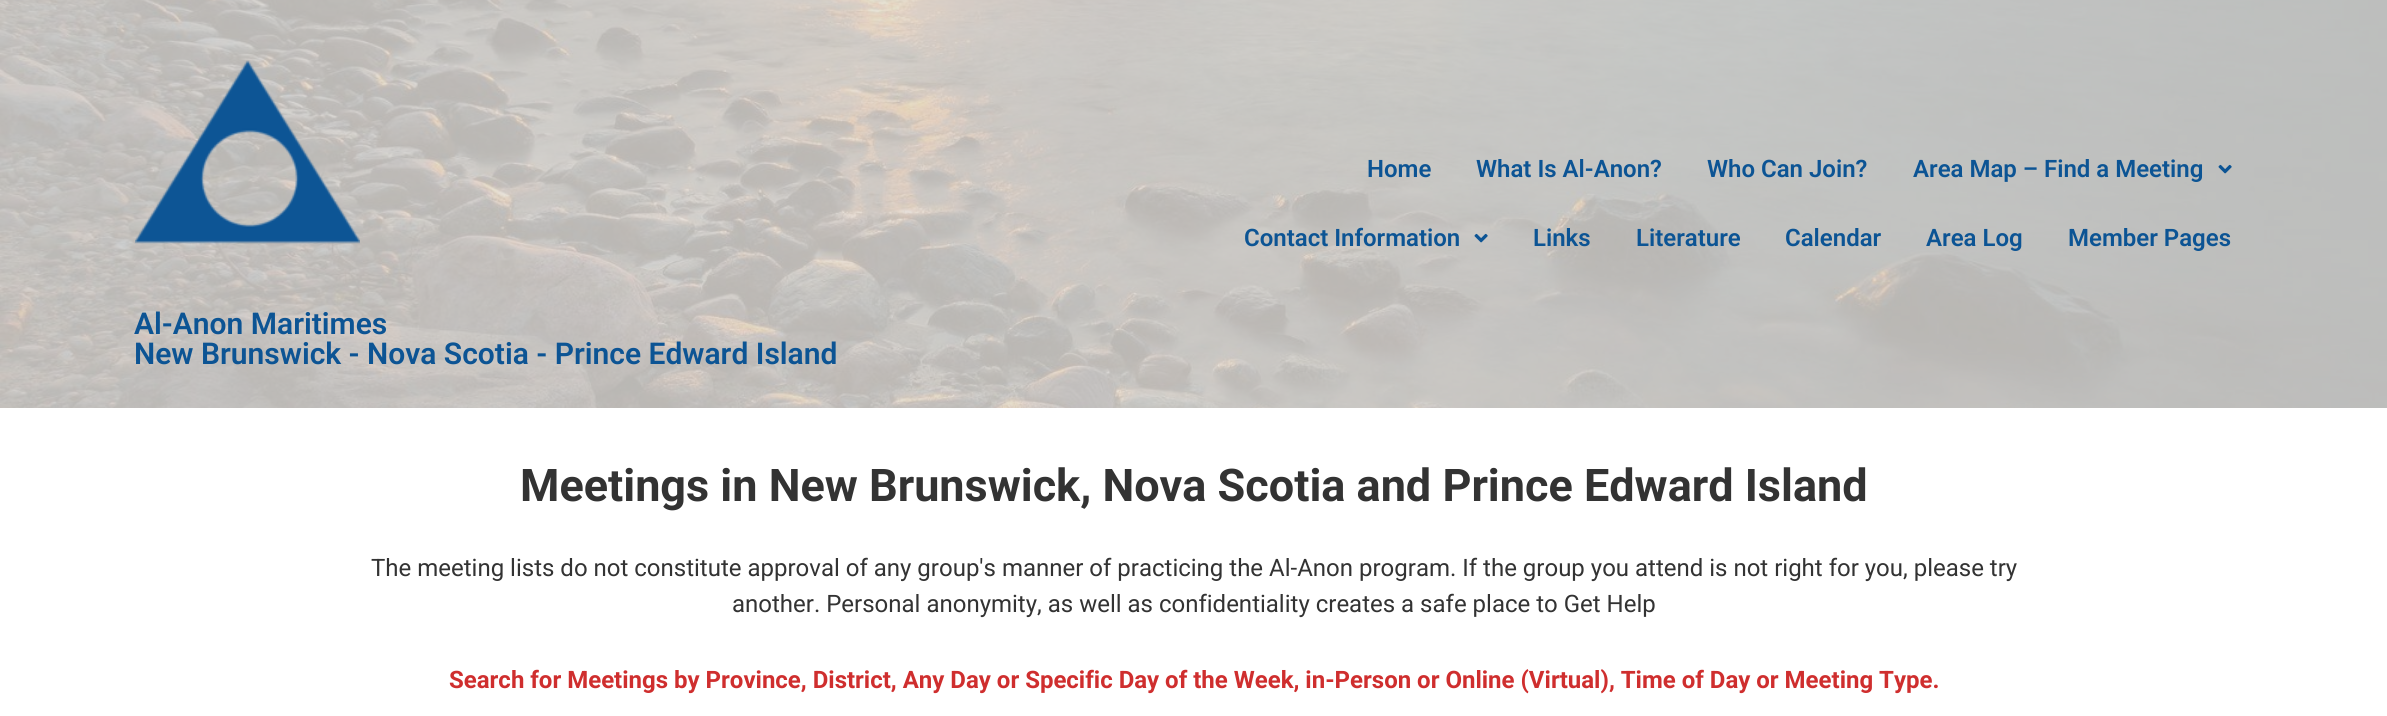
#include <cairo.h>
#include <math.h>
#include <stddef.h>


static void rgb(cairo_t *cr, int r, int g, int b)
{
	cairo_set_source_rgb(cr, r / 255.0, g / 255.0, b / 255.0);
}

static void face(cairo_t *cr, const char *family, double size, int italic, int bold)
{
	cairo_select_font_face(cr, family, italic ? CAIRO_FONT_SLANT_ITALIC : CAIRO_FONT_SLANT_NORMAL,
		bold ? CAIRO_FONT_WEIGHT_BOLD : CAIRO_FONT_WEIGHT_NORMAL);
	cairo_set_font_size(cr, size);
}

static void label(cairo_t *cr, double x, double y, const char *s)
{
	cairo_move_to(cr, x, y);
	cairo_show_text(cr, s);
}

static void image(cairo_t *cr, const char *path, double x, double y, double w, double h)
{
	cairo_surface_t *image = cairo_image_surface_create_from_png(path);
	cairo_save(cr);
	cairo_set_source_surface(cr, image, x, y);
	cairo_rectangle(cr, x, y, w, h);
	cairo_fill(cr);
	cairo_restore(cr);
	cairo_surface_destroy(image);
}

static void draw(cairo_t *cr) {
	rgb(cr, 255, 255, 255);
	cairo_paint(cr);
	image(cr, "image0.png", 0, 0, 2387, 408);
	face(cr, "Roboto SemiBold", 24, 0, 0);
	rgb(cr, 12, 84, 148);
	label(cr, 1367, 177, "Home");
	label(cr, 1476, 177, "What Is Al-Anon?");
	label(cr, 1707, 177, "Who Can Join?");
	label(cr, 1913, 177, "Area Map – Find a Meeting");
	image(cr, "image1.png", 2218, 164, 14, 10);
	label(cr, 1244, 246, "Contact Information");
	image(cr, "image2.png", 1474, 233, 14, 10);
	label(cr, 1533, 246, "Links");
	label(cr, 1636, 246, "Literature");
	label(cr, 1785, 246, "Calendar");
	label(cr, 1926, 246, "Area Log");
	label(cr, 2068, 246, "Member Pages");
	image(cr, "image3.png", 135, 60, 225, 184);
	face(cr, "Roboto SemiBold", 30, 0, 0);
	label(cr, 134, 334, "Al-Anon Maritimes");
	label(cr, 134, 364, "New Brunswick - Nova Scotia - Prince Edward Island");
	face(cr, "Roboto", 45, 0, 1);
	rgb(cr, 51, 51, 51);
	label(cr, 520, 501, "Meetings in New Brunswick, Nova Scotia and Prince Edward Island");
	face(cr, "Roboto", 24, 0, 0);
	label(cr, 371, 576, "The meeting lists do not constitute approval of any group's manner of practicing the Al-Anon program. If the group you attend is not right for you, please try");
	label(cr, 732, 612, "another. Personal anonymity, as well as confidentiality creates a safe place to Get Help");
	face(cr, "Roboto", 24, 0, 1);
	rgb(cr, 207, 46, 46);
	label(cr, 449, 688, "Search for Meetings by Province, District, Any Day or Specific Day of the Week, in-Person or Online (Virtual), Time of Day or Meeting Type.");
}

int main(void) {
	cairo_surface_t *surface = cairo_image_surface_create(CAIRO_FORMAT_RGB24, 2387, 716);
	cairo_t *cr = cairo_create(surface);
	cairo_font_options_t *options = cairo_font_options_create();
	cairo_font_options_set_hint_metrics(options, CAIRO_HINT_METRICS_OFF);
	cairo_font_options_set_hint_style(options, CAIRO_HINT_STYLE_NONE);
	cairo_set_font_options(cr, options);
	cairo_set_miter_limit(cr, 4);
	draw(cr);
	cairo_surface_write_to_png(surface, "render.png");
	cairo_font_options_destroy(options);
	cairo_destroy(cr);
	cairo_surface_destroy(surface);
	return 0;
}
